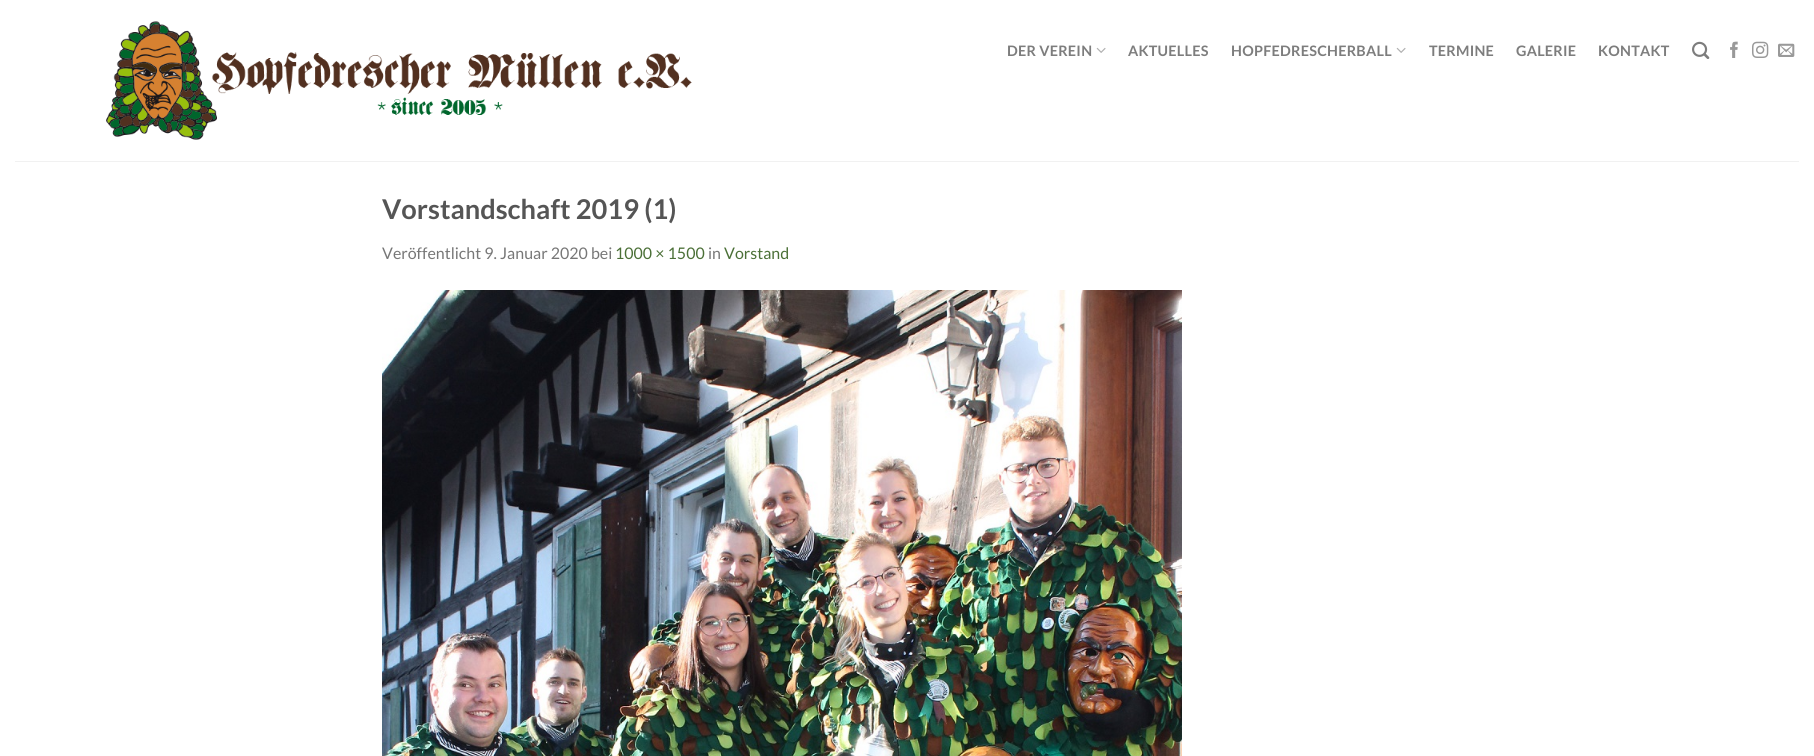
#include <cairo.h>
#include <math.h>
#include <stddef.h>


static void rgb(cairo_t *cr, int r, int g, int b)
{
	cairo_set_source_rgb(cr, r / 255.0, g / 255.0, b / 255.0);
}

static void face(cairo_t *cr, const char *family, double size, int italic, int bold)
{
	cairo_select_font_face(cr, family, italic ? CAIRO_FONT_SLANT_ITALIC : CAIRO_FONT_SLANT_NORMAL,
		bold ? CAIRO_FONT_WEIGHT_BOLD : CAIRO_FONT_WEIGHT_NORMAL);
	cairo_set_font_size(cr, size);
}

static void label(cairo_t *cr, double x, double y, const char *s)
{
	cairo_move_to(cr, x, y);
	cairo_show_text(cr, s);
}

static void tracked(cairo_t *cr, double x, double y, const char *s, double letter, double word)
{
	cairo_move_to(cr, x, y);
	while (*s) {
		char ch[5] = {0};
		int n = 0;
		do ch[n++] = *s++; while ((*s & 0xC0) == 0x80);
		cairo_show_text(cr, ch);
		cairo_rel_move_to(cr, letter + word * (*ch == ' '), 0);
	}
}

static void rect(cairo_t *cr, double x, double y, double w, double h)
{
	cairo_rectangle(cr, x, y, w, h);
	cairo_fill(cr);
}

static void image(cairo_t *cr, const char *path, double x, double y, double w, double h)
{
	cairo_surface_t *image = cairo_image_surface_create_from_png(path);
	cairo_save(cr);
	cairo_set_source_surface(cr, image, x, y);
	cairo_rectangle(cr, x, y, w, h);
	cairo_fill(cr);
	cairo_restore(cr);
	cairo_surface_destroy(image);
}

static void draw(cairo_t *cr) {
	rgb(cr, 255, 255, 255);
	cairo_paint(cr);
	image(cr, "image0.png", 106, 21, 586, 119);
	face(cr, "Lato", 14.4, 0, 1);
	rgb(cr, 125, 125, 125);
	tracked(cr, 1007, 56, "DER VEREIN", 0.25, 0);
	image(cr, "image1.png", 1096, 47, 10, 6);
	tracked(cr, 1128, 56, "AKTUELLES", 0.25, 0);
	tracked(cr, 1231, 56, "HOPFEDRESCHERBALL", 0.25, 0);
	image(cr, "image1.png", 1396, 47, 10, 6);
	tracked(cr, 1429, 56, "TERMINE", 0.25, 0);
	tracked(cr, 1516, 56, "GALERIE", 0.25, 0);
	tracked(cr, 1598, 56, "KONTAKT", 0.25, 0);
	image(cr, "image2.png", 1692, 41, 18, 18);
	image(cr, "image3.png", 1730, 41, 8, 17);
	image(cr, "image4.png", 1752, 41, 17, 17);
	image(cr, "image5.png", 1778, 43, 17, 14);
	rgb(cr, 241, 241, 241);
	rect(cr, 15, 161, 1784, 1);
	face(cr, "Lato", 27.25, 0, 1);
	rgb(cr, 85, 85, 85);
	label(cr, 382, 219, "Vorstandschaft 2019 (1)");
	face(cr, "Lato", 16, 0, 0);
	rgb(cr, 119, 119, 119);
	label(cr, 382, 259, "Veröffentlicht 9. Januar 2020 bei");
	rgb(cr, 75, 112, 55);
	label(cr, 615, 259, "1000 × 1500");
	rgb(cr, 119, 119, 119);
	label(cr, 708, 259, "in");
	rgb(cr, 75, 112, 55);
	label(cr, 724, 259, "Vorstand");
	image(cr, "image6.png", 382, 290, 800, 466);
}

int main(void) {
	cairo_surface_t *surface = cairo_image_surface_create(CAIRO_FORMAT_RGB24, 1814, 756);
	cairo_t *cr = cairo_create(surface);
	cairo_font_options_t *options = cairo_font_options_create();
	cairo_font_options_set_hint_metrics(options, CAIRO_HINT_METRICS_OFF);
	cairo_font_options_set_hint_style(options, CAIRO_HINT_STYLE_NONE);
	cairo_set_font_options(cr, options);
	cairo_set_miter_limit(cr, 4);
	draw(cr);
	cairo_surface_write_to_png(surface, "render.png");
	cairo_font_options_destroy(options);
	cairo_destroy(cr);
	cairo_surface_destroy(surface);
	return 0;
}
